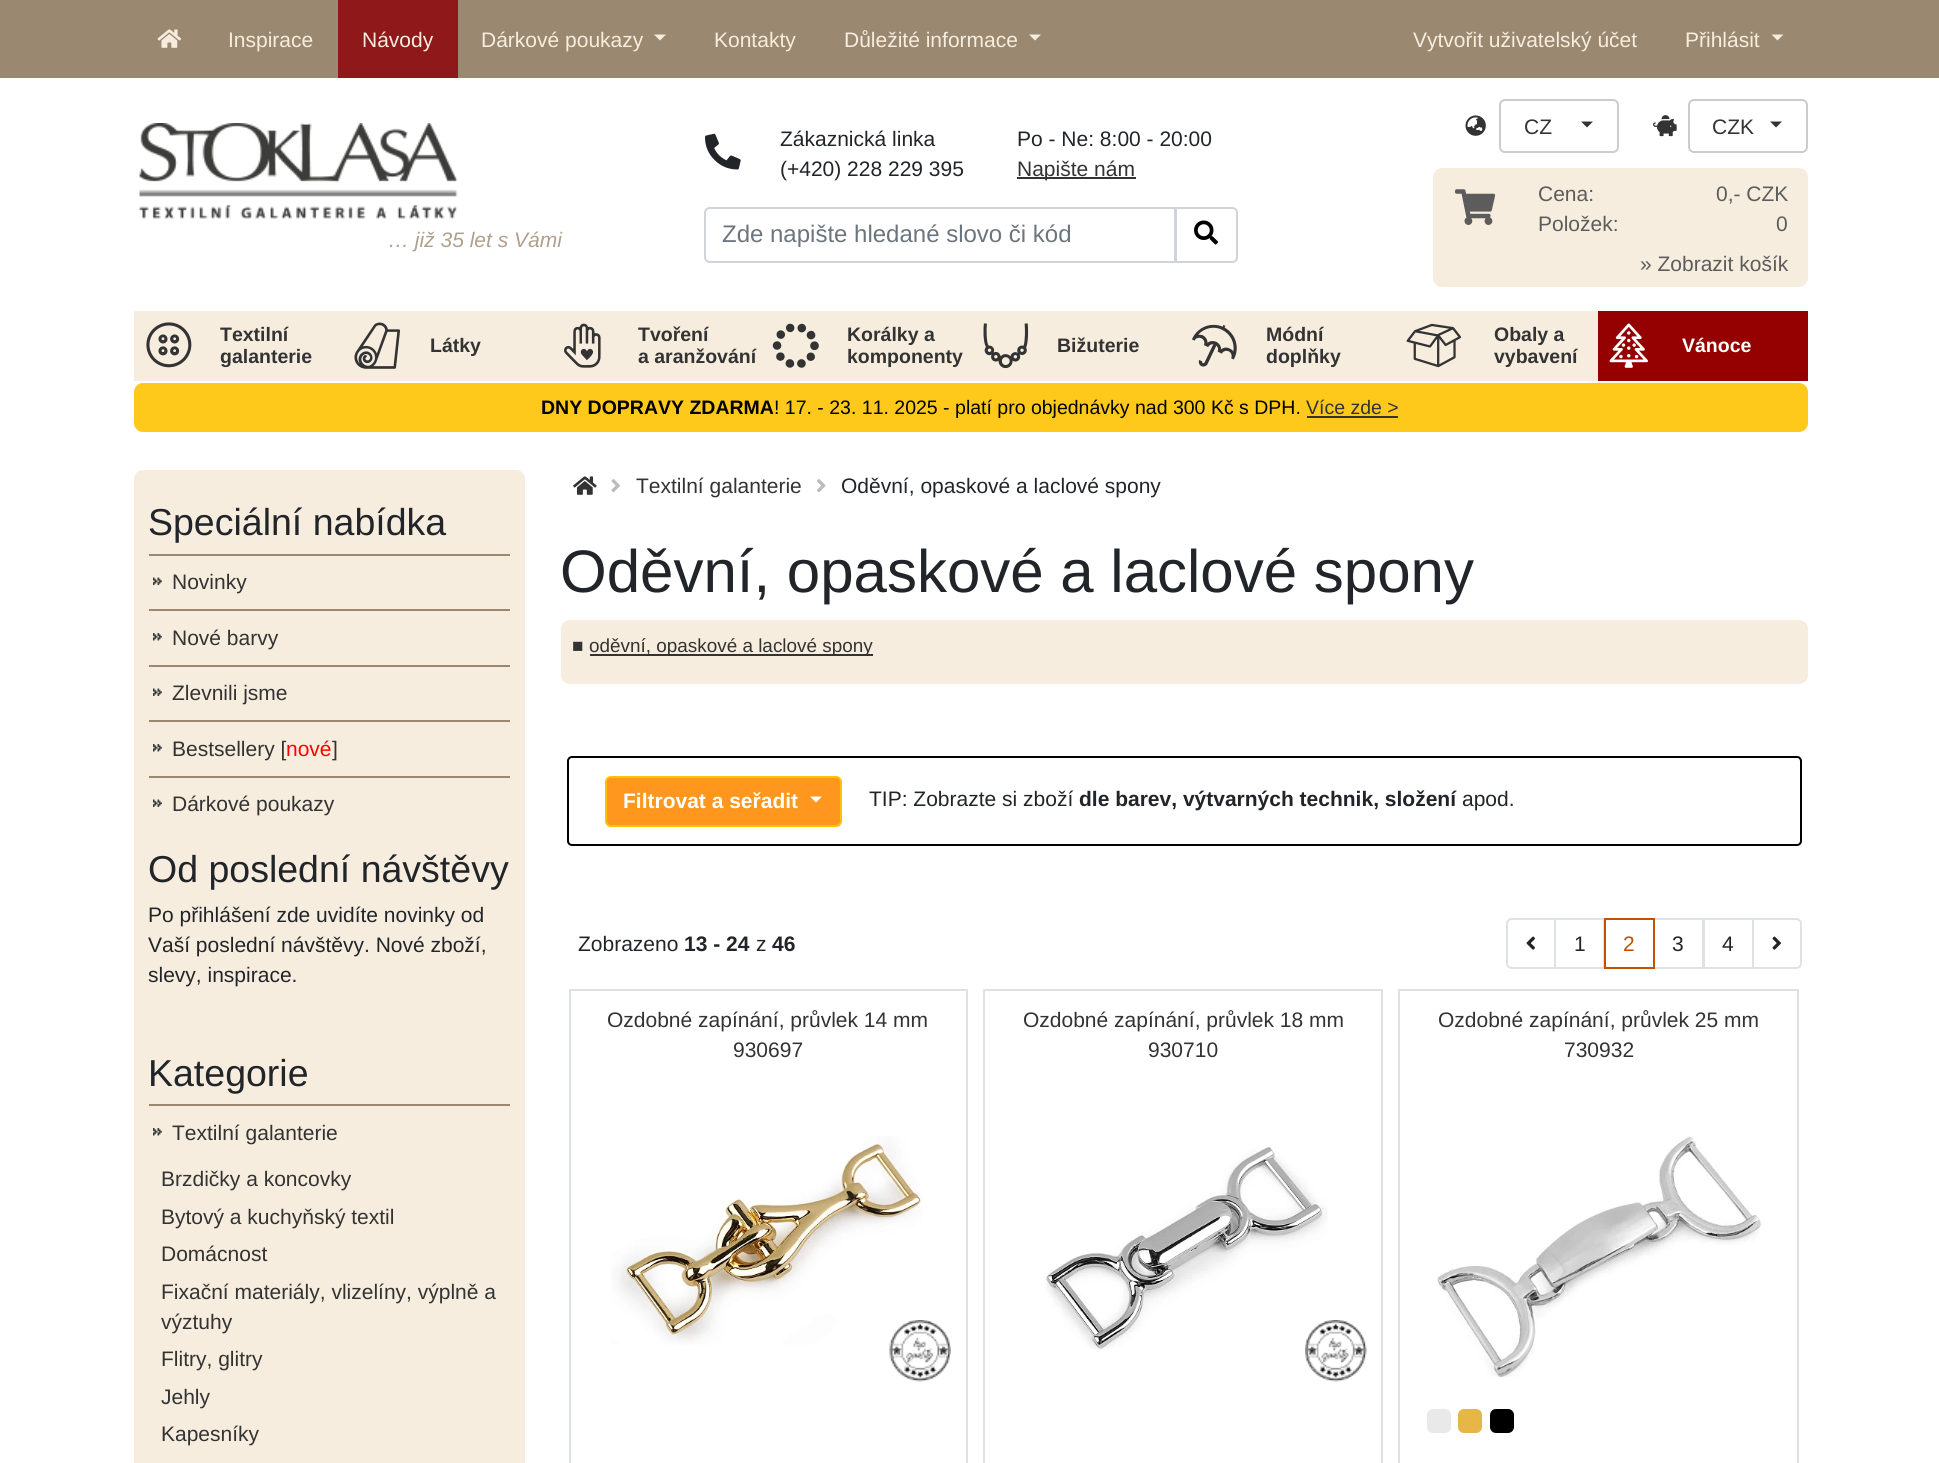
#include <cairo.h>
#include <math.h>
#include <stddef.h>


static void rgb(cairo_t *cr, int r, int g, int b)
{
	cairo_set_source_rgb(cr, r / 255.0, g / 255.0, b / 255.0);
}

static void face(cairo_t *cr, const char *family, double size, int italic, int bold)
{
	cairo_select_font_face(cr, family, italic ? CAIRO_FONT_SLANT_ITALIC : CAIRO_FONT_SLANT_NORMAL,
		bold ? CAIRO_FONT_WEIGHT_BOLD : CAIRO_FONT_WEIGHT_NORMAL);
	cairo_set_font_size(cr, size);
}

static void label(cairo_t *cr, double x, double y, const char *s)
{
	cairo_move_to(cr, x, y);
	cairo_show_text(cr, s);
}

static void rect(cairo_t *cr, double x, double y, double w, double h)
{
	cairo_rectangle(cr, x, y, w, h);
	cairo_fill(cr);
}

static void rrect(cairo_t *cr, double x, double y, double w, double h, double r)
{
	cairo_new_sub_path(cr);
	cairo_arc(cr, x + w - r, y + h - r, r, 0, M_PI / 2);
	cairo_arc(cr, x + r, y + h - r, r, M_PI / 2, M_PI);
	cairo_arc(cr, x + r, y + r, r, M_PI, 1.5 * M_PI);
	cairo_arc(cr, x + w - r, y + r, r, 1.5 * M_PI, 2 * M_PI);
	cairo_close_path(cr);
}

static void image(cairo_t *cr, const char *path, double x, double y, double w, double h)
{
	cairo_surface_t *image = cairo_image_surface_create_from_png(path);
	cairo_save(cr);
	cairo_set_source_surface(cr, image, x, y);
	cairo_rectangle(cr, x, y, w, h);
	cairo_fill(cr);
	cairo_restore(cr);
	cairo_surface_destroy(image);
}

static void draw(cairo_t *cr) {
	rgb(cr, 255, 255, 255);
	cairo_paint(cr);
	rgb(cr, 154, 136, 112);
	rect(cr, 0, 0, 1939, 78);
	image(cr, "image0.png", 157, 29, 25, 19);
	face(cr, "Liberation Sans", 21, 0, 0);
	rgb(cr, 247, 237, 222);
	label(cr, 228, 47, "Inspirace");
	rgb(cr, 142, 24, 26);
	rect(cr, 338, 0, 120, 78);
	rgb(cr, 247, 237, 222);
	label(cr, 362, 47, "Návody");
	label(cr, 481, 47, "Dárkové poukazy");
	cairo_new_path(cr);
	cairo_move_to(cr, 654, 34.5);
	cairo_line_to(cr, 666, 34.5);
	cairo_line_to(cr, 660, 40.5);
	cairo_close_path(cr);
	cairo_fill(cr);
	label(cr, 714, 47, "Kontakty");
	label(cr, 844, 47, "Důležité informace");
	cairo_new_path(cr);
	cairo_move_to(cr, 1029, 34.5);
	cairo_line_to(cr, 1041, 34.5);
	cairo_line_to(cr, 1035, 40.5);
	cairo_close_path(cr);
	cairo_fill(cr);
	label(cr, 1413, 47, "Vytvořit uživatelský účet");
	label(cr, 1685, 47, "Přihlásit");
	cairo_new_path(cr);
	cairo_move_to(cr, 1771.5, 34.5);
	cairo_line_to(cr, 1783.5, 34.5);
	cairo_line_to(cr, 1777.5, 40.5);
	cairo_close_path(cr);
	cairo_fill(cr);
	image(cr, "image1.png", 139, 123, 319, 96);
	face(cr, "Liberation Sans", 21, 1, 0);
	rgb(cr, 174, 160, 141);
	label(cr, 388, 247, "… již 35 let s Vámi");
	image(cr, "image2.png", 705, 133, 36, 37);
	face(cr, "Liberation Sans", 21, 0, 0);
	rgb(cr, 33, 37, 41);
	label(cr, 780, 146, "Zákaznická linka");
	label(cr, 780, 176, "(+420) 228 229 395");
	label(cr, 1017, 146, "Po - Ne: 8:00 - 20:00");
	rgb(cr, 51, 51, 51);
	rect(cr, 1017, 177, 119, 2);
	label(cr, 1017, 176, "Napište nám");
	cairo_new_path(cr);
	cairo_move_to(cr, 710, 208);
	cairo_line_to(cr, 1175, 208);
	cairo_line_to(cr, 1175, 262);
	cairo_line_to(cr, 710, 262);
	cairo_curve_to(cr, 707, 262, 705, 260, 705, 257);
	cairo_line_to(cr, 705, 213);
	cairo_curve_to(cr, 705, 210, 707, 208, 710, 208);
	cairo_close_path(cr);
	rgb(cr, 206, 212, 218);
	cairo_stroke(cr);
	face(cr, "Liberation Sans", 24, 0, 0);
	rgb(cr, 108, 117, 125);
	label(cr, 722, 242, "Zde napište hledané slovo či kód");
	rgb(cr, 255, 255, 255);
	cairo_new_path(cr);
	cairo_move_to(cr, 1176, 208);
	cairo_line_to(cr, 1232, 208);
	cairo_curve_to(cr, 1235, 208, 1237, 210, 1237, 213);
	cairo_line_to(cr, 1237, 257);
	cairo_curve_to(cr, 1237, 260, 1235, 262, 1232, 262);
	cairo_line_to(cr, 1176, 262);
	cairo_close_path(cr);
	cairo_fill_preserve(cr);
	rgb(cr, 206, 212, 218);
	cairo_stroke(cr);
	image(cr, "image3.png", 1194, 220, 24, 25);
	rrect(cr, 1500, 100, 118, 52, 5);
	rgb(cr, 204, 204, 204);
	cairo_stroke(cr);
	image(cr, "image4.png", 1465, 115, 21, 21);
	face(cr, "Liberation Sans", 21, 0, 0);
	rgb(cr, 51, 51, 51);
	label(cr, 1524, 134, "CZ");
	cairo_new_path(cr);
	cairo_move_to(cr, 1581, 121.5);
	cairo_line_to(cr, 1593, 121.5);
	cairo_line_to(cr, 1587, 127.5);
	cairo_close_path(cr);
	cairo_fill(cr);
	rrect(cr, 1689, 100, 118, 52, 5);
	rgb(cr, 204, 204, 204);
	cairo_stroke(cr);
	image(cr, "image5.png", 1653, 115, 24, 22);
	rgb(cr, 51, 51, 51);
	label(cr, 1712, 134, "CZK");
	cairo_new_path(cr);
	cairo_move_to(cr, 1770, 121.5);
	cairo_line_to(cr, 1782, 121.5);
	cairo_line_to(cr, 1776, 127.5);
	cairo_close_path(cr);
	cairo_fill(cr);
	rgb(cr, 247, 237, 222);
	rrect(cr, 1433, 168, 375, 119, 9);
	cairo_fill(cr);
	image(cr, "image6.png", 1455, 189, 41, 36);
	rgb(cr, 92, 92, 92);
	label(cr, 1538, 201, "Cena:");
	label(cr, 1538, 231, "Položek:");
	label(cr, 1716, 201, "0,- CZK");
	label(cr, 1776, 231, "0");
	label(cr, 1640, 271, "» Zobrazit košík");
	rgb(cr, 247, 237, 222);
	rect(cr, 134, 311, 1464, 70);
	image(cr, "image7.png", 146, 322, 46, 46);
	face(cr, "Liberation Sans", 19.5, 0, 1);
	rgb(cr, 51, 51, 51);
	label(cr, 220, 341, "Textilní");
	label(cr, 220, 363, "galanterie");
	image(cr, "image8.png", 354, 322, 46, 47);
	label(cr, 430, 352, "Látky");
	image(cr, "image9.png", 564, 323, 37, 45);
	label(cr, 638, 341, "Tvoření");
	label(cr, 638, 363, "a aranžování");
	image(cr, "image10.png", 772, 323, 47, 45);
	label(cr, 847, 341, "Korálky a");
	label(cr, 847, 363, "komponenty");
	image(cr, "image11.png", 983, 323, 46, 46);
	label(cr, 1057, 352, "Bižuterie");
	image(cr, "image12.png", 1192, 324, 45, 43);
	label(cr, 1266, 341, "Módní");
	label(cr, 1266, 363, "doplňky");
	image(cr, "image13.png", 1406, 323, 56, 45);
	label(cr, 1494, 341, "Obaly a");
	label(cr, 1494, 363, "vybavení");
	rgb(cr, 149, 1, 1);
	rect(cr, 1598, 311, 210, 70);
	image(cr, "image14.png", 1609, 323, 39, 45);
	rgb(cr, 255, 255, 255);
	label(cr, 1682, 352, "Vánoce");
	rgb(cr, 254, 201, 27);
	rrect(cr, 134, 383, 1674, 49, 9);
	cairo_fill(cr);
	rgb(cr, 0, 0, 0);
	label(cr, 541, 414, "DNY DOPRAVY ZDARMA");
	face(cr, "Liberation Sans", 19.5, 0, 0);
	label(cr, 774, 414, "! 17. - 23. 11. 2025 - platí pro objednávky nad 300 Kč s DPH.");
	rgb(cr, 51, 51, 51);
	label(cr, 1306, 414, "Více zde >");
	rect(cr, 1307, 416, 91, 2);
	rgb(cr, 247, 237, 222);
	rrect(cr, 134, 470, 391, 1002, 9);
	cairo_fill(cr);
	face(cr, "Liberation Sans", 37.5, 0, 0);
	rgb(cr, 33, 37, 41);
	label(cr, 148, 535, "Speciální nabídka");
	image(cr, "image15.png", 153, 577, 9, 8);
	rgb(cr, 154, 136, 112);
	rect(cr, 149, 554, 361, 2);
	face(cr, "Liberation Sans", 21, 0, 0);
	rgb(cr, 51, 51, 51);
	label(cr, 172, 589, "Novinky");
	image(cr, "image16.png", 153, 633, 9, 8);
	rgb(cr, 154, 136, 112);
	rect(cr, 149, 609, 361, 2);
	rgb(cr, 51, 51, 51);
	label(cr, 172, 645, "Nové barvy");
	image(cr, "image15.png", 153, 688, 9, 8);
	rgb(cr, 154, 136, 112);
	rect(cr, 149, 665, 361, 2);
	rgb(cr, 51, 51, 51);
	label(cr, 172, 700, "Zlevnili jsme");
	image(cr, "image16.png", 153, 744, 9, 8);
	rgb(cr, 154, 136, 112);
	rect(cr, 149, 720, 361, 2);
	rgb(cr, 51, 51, 51);
	label(cr, 172, 756, "Bestsellery [");
	rgb(cr, 255, 0, 0);
	label(cr, 286, 756, "nové");
	rgb(cr, 51, 51, 51);
	label(cr, 332, 756, "]");
	image(cr, "image15.png", 153, 799, 9, 8);
	rgb(cr, 154, 136, 112);
	rect(cr, 149, 776, 361, 2);
	rgb(cr, 51, 51, 51);
	label(cr, 172, 811, "Dárkové poukazy");
	face(cr, "Liberation Sans", 37.5, 0, 0);
	rgb(cr, 33, 37, 41);
	label(cr, 148, 882, "Od poslední návštěvy");
	face(cr, "Liberation Sans", 21, 0, 0);
	label(cr, 148, 922, "Po přihlášení zde uvidíte novinky od");
	label(cr, 148, 952, "Vaší poslední návštěvy. Nové zboží,");
	label(cr, 148, 982, "slevy, inspirace.");
	face(cr, "Liberation Sans", 37.5, 0, 0);
	label(cr, 148, 1086, "Kategorie");
	image(cr, "image16.png", 153, 1128, 9, 8);
	rgb(cr, 154, 136, 112);
	rect(cr, 149, 1104, 361, 2);
	face(cr, "Liberation Sans", 21, 0, 0);
	rgb(cr, 51, 51, 51);
	label(cr, 172, 1140, "Textilní galanterie");
	label(cr, 161, 1186, "Brzdičky a koncovky");
	label(cr, 161, 1224, "Bytový a kuchyňský textil");
	label(cr, 161, 1261, "Domácnost");
	label(cr, 161, 1299, "Fixační materiály, vlizelíny, výplně a");
	label(cr, 161, 1329, "výztuhy");
	label(cr, 161, 1366, "Flitry, glitry");
	label(cr, 161, 1404, "Jehly");
	label(cr, 161, 1441, "Kapesníky");
	image(cr, "image17.png", 573, 476, 24, 19);
	image(cr, "image18.png", 611, 479, 9, 14);
	label(cr, 636, 493, "Textilní galanterie");
	image(cr, "image19.png", 817, 479, 9, 14);
	rgb(cr, 33, 37, 41);
	label(cr, 841, 493, "Oděvní, opaskové a laclové spony");
	face(cr, "Liberation Sans", 60, 0, 0);
	label(cr, 560, 592, "Oděvní, opaskové a laclové spony");
	rgb(cr, 247, 237, 222);
	rrect(cr, 561, 620, 1247, 64, 9);
	cairo_fill(cr);
	face(cr, "Liberation Sans", 18.9, 0, 0);
	rgb(cr, 51, 51, 51);
	label(cr, 572, 652, "■");
	rect(cr, 590, 654, 283, 2);
	label(cr, 589, 652, "oděvní, opaskové a laclové spony");
	rrect(cr, 568, 757, 1233, 88, 4);
	rgb(cr, 0, 0, 0);
	cairo_stroke(cr);
	rgb(cr, 255, 151, 31);
	rrect(cr, 606, 777, 235, 49, 5);
	cairo_fill_preserve(cr);
	rgb(cr, 255, 193, 7);
	cairo_stroke(cr);
	face(cr, "Liberation Sans", 21, 0, 1);
	rgb(cr, 255, 255, 255);
	label(cr, 623, 808, "Filtrovat a seřadit");
	cairo_new_path(cr);
	cairo_move_to(cr, 810, 796.5);
	cairo_line_to(cr, 822, 796.5);
	cairo_line_to(cr, 816, 802.5);
	cairo_close_path(cr);
	cairo_fill(cr);
	face(cr, "Liberation Sans", 21, 0, 0);
	rgb(cr, 33, 37, 41);
	label(cr, 869, 806, "TIP: Zobrazte si zboží");
	face(cr, "Liberation Sans", 21, 0, 1);
	label(cr, 1079, 806, "dle barev, výtvarných technik, složení");
	face(cr, "Liberation Sans", 21, 0, 0);
	label(cr, 1462, 806, "apod.");
	label(cr, 578, 951, "Zobrazeno");
	face(cr, "Liberation Sans", 21, 0, 1);
	label(cr, 684, 951, "13 - 24");
	face(cr, "Liberation Sans", 21, 0, 0);
	label(cr, 756, 951, "z");
	face(cr, "Liberation Sans", 21, 0, 1);
	label(cr, 772, 951, "46");
	cairo_new_path(cr);
	cairo_move_to(cr, 1512, 919);
	cairo_line_to(cr, 1555, 919);
	cairo_line_to(cr, 1555, 968);
	cairo_line_to(cr, 1512, 968);
	cairo_curve_to(cr, 1509, 968, 1507, 966, 1507, 963);
	cairo_line_to(cr, 1507, 924);
	cairo_curve_to(cr, 1507, 921, 1509, 919, 1512, 919);
	cairo_close_path(cr);
	rgb(cr, 222, 226, 230);
	cairo_stroke(cr);
	image(cr, "image20.png", 1526, 936, 9, 14);
	cairo_rectangle(cr, 1555, 919, 49, 49);
	cairo_stroke(cr);
	face(cr, "Liberation Sans", 21, 0, 0);
	rgb(cr, 33, 37, 41);
	label(cr, 1574, 951, "1");
	cairo_rectangle(cr, 1654, 919, 49, 49);
	rgb(cr, 222, 226, 230);
	cairo_stroke(cr);
	cairo_rectangle(cr, 1605, 919, 49, 49);
	rgb(cr, 197, 80, 2);
	cairo_stroke(cr);
	label(cr, 1623, 951, "2");
	rgb(cr, 33, 37, 41);
	label(cr, 1672, 951, "3");
	cairo_rectangle(cr, 1704, 919, 49, 49);
	rgb(cr, 222, 226, 230);
	cairo_stroke(cr);
	rgb(cr, 33, 37, 41);
	label(cr, 1722, 951, "4");
	rgb(cr, 255, 255, 255);
	cairo_new_path(cr);
	cairo_move_to(cr, 1753, 919);
	cairo_line_to(cr, 1796, 919);
	cairo_curve_to(cr, 1799, 919, 1801, 921, 1801, 924);
	cairo_line_to(cr, 1801, 963);
	cairo_curve_to(cr, 1801, 966, 1799, 968, 1796, 968);
	cairo_line_to(cr, 1753, 968);
	cairo_close_path(cr);
	cairo_fill_preserve(cr);
	rgb(cr, 222, 226, 230);
	cairo_stroke(cr);
	image(cr, "image21.png", 1772, 936, 9, 14);
	cairo_rectangle(cr, 570, 990, 397, 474);
	cairo_stroke(cr);
	rgb(cr, 51, 51, 51);
	label(cr, 607, 1027, "Ozdobné zapínání, průvlek 14 mm");
	label(cr, 733, 1057, "930697");
	image(cr, "image22.png", 611, 1136, 312, 209);
	image(cr, "image23.png", 889, 1320, 62, 62);
	cairo_rectangle(cr, 984, 990, 398, 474);
	rgb(cr, 222, 226, 230);
	cairo_stroke(cr);
	rgb(cr, 51, 51, 51);
	label(cr, 1023, 1027, "Ozdobné zapínání, průvlek 18 mm");
	label(cr, 1148, 1057, "930710");
	image(cr, "image24.png", 1045, 1147, 283, 203);
	image(cr, "image25.png", 1305, 1320, 62, 62);
	cairo_rectangle(cr, 1399, 990, 399, 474);
	rgb(cr, 222, 226, 230);
	cairo_stroke(cr);
	rgb(cr, 51, 51, 51);
	label(cr, 1438, 1027, "Ozdobné zapínání, průvlek 25 mm");
	label(cr, 1564, 1057, "730932");
	image(cr, "image26.png", 1437, 1136, 324, 242);
	rgb(cr, 233, 233, 233);
	rrect(cr, 1427, 1409, 24, 24, 6);
	cairo_fill(cr);
	rgb(cr, 230, 182, 70);
	rrect(cr, 1458, 1409, 24, 24, 6);
	cairo_fill(cr);
	rgb(cr, 0, 0, 0);
	rrect(cr, 1490, 1409, 24, 24, 6);
	cairo_fill(cr);
}

int main(void) {
	cairo_surface_t *surface = cairo_image_surface_create(CAIRO_FORMAT_RGB24, 1939, 1463);
	cairo_t *cr = cairo_create(surface);
	cairo_font_options_t *options = cairo_font_options_create();
	cairo_font_options_set_hint_metrics(options, CAIRO_HINT_METRICS_OFF);
	cairo_font_options_set_hint_style(options, CAIRO_HINT_STYLE_NONE);
	cairo_set_font_options(cr, options);
	cairo_set_miter_limit(cr, 4);
	draw(cr);
	cairo_surface_write_to_png(surface, "render.png");
	cairo_font_options_destroy(options);
	cairo_destroy(cr);
	cairo_surface_destroy(surface);
	return 0;
}
